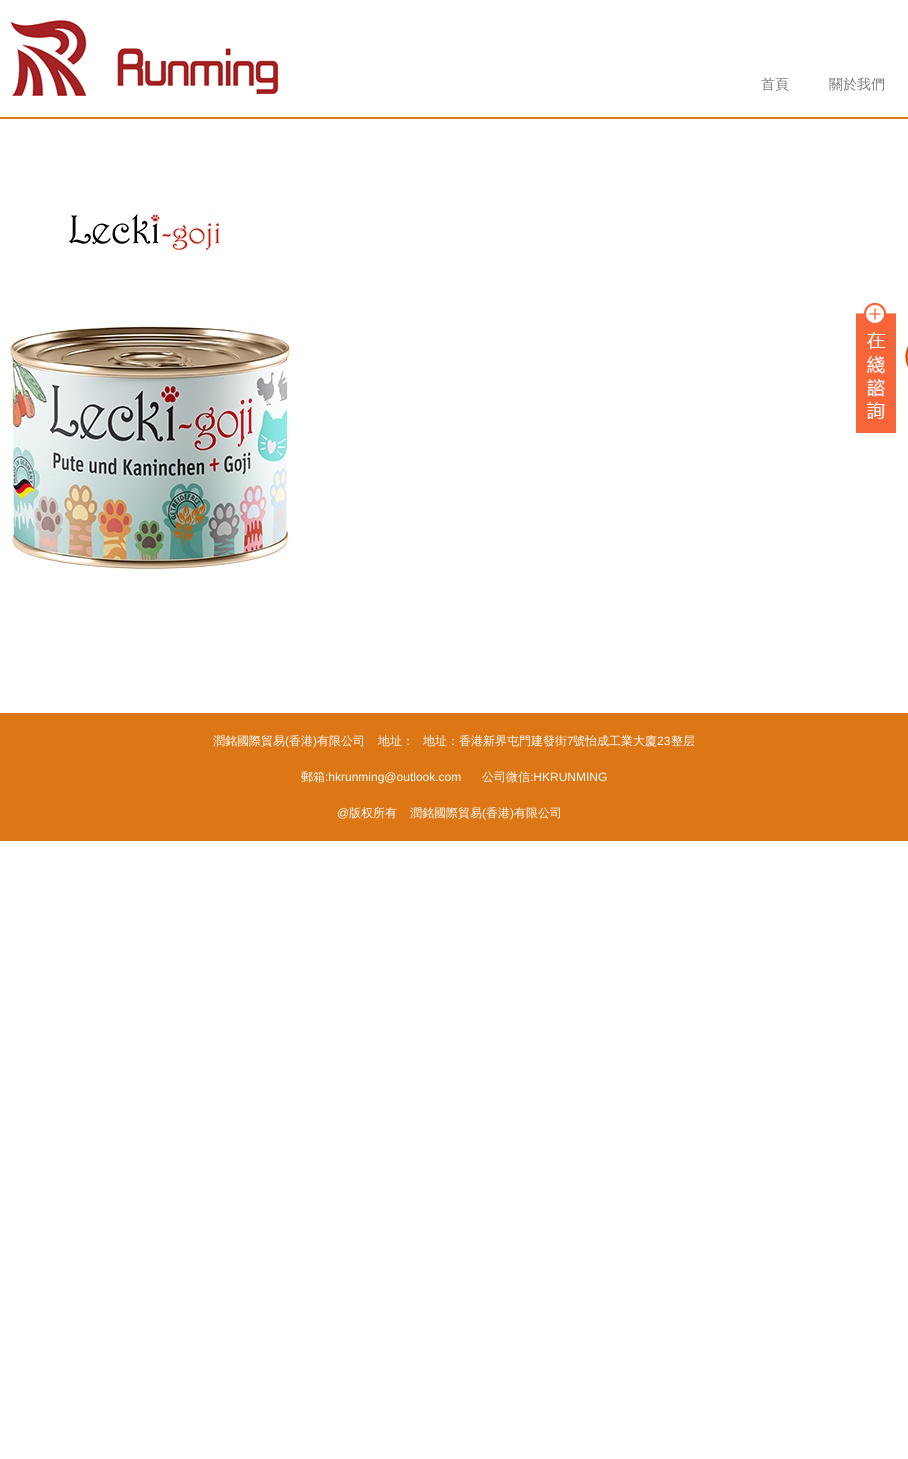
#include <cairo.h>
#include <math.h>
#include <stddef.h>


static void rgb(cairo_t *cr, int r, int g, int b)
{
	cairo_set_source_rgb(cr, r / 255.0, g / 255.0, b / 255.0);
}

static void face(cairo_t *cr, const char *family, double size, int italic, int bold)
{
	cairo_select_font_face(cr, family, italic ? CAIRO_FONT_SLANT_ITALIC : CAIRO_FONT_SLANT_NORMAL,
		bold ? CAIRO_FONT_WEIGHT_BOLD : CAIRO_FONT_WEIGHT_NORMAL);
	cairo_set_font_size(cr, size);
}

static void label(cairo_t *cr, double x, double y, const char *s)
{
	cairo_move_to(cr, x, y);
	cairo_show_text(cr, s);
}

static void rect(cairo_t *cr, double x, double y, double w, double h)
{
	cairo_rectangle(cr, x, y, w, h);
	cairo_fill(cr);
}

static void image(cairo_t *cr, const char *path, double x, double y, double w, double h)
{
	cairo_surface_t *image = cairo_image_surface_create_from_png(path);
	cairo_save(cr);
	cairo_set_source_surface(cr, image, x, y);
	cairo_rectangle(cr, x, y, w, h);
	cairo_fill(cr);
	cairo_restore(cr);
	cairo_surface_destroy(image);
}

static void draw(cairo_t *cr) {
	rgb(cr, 255, 255, 255);
	cairo_paint(cr);
	rgb(cr, 222, 120, 25);
	rect(cr, 0, 117, 908, 2);
	image(cr, "image0.png", 10, 20, 269, 77);
	face(cr, "WenQuanYi Zen Hei Medium", 14, 0, 0);
	rgb(cr, 125, 121, 121);
	label(cr, 761, 89, "首頁");
	label(cr, 829, 89, "關於我們");
	image(cr, "image1.png", 2, 208, 294, 364);
	image(cr, "image2.png", 905, 346, 3, 21);
	image(cr, "image3.png", 856, 302, 40, 131);
	rgb(cr, 221, 118, 21);
	rect(cr, 0, 713, 908, 128);
	face(cr, "WenQuanYi Zen Hei Medium", 12, 0, 0);
	rgb(cr, 255, 255, 255);
	label(cr, 213, 745, "潤銘國際貿易");
	face(cr, "Liberation Sans", 12, 0, 0);
	label(cr, 285, 745, "(");
	face(cr, "WenQuanYi Zen Hei Medium", 12, 0, 0);
	label(cr, 289, 745, "香港");
	face(cr, "Liberation Sans", 12, 0, 0);
	label(cr, 313, 745, ")");
	face(cr, "WenQuanYi Zen Hei Medium", 12, 0, 0);
	label(cr, 317, 745, "有限公司");
	label(cr, 378, 745, "地址：");
	label(cr, 423, 745, "地址：香港新界屯門建發街");
	face(cr, "Liberation Sans", 12, 0, 0);
	label(cr, 567, 745, "7");
	face(cr, "WenQuanYi Zen Hei Medium", 12, 0, 0);
	label(cr, 573, 745, "號怡成工業大廈");
	face(cr, "Liberation Sans", 12, 0, 0);
	label(cr, 657, 745, "23");
	face(cr, "WenQuanYi Zen Hei Medium", 12, 0, 0);
	label(cr, 671, 745, "整层");
	label(cr, 301, 781, "郵箱");
	face(cr, "Liberation Sans", 12, 0, 0);
	label(cr, 325, 781, ":hkrunming@outlook.com");
	face(cr, "WenQuanYi Zen Hei Medium", 12, 0, 0);
	label(cr, 482, 781, "公司微信");
	face(cr, "Liberation Sans", 12, 0, 0);
	label(cr, 530, 781, ":HKRUNMING");
	label(cr, 337, 817, "@");
	face(cr, "WenQuanYi Zen Hei Medium", 12, 0, 0);
	label(cr, 349, 817, "版权所有");
	label(cr, 410, 817, "潤銘國際貿易");
	face(cr, "Liberation Sans", 12, 0, 0);
	label(cr, 482, 817, "(");
	face(cr, "WenQuanYi Zen Hei Medium", 12, 0, 0);
	label(cr, 486, 817, "香港");
	face(cr, "Liberation Sans", 12, 0, 0);
	label(cr, 510, 817, ")");
	face(cr, "WenQuanYi Zen Hei Medium", 12, 0, 0);
	label(cr, 514, 817, "有限公司");
}

int main(void) {
	cairo_surface_t *surface = cairo_image_surface_create(CAIRO_FORMAT_RGB24, 908, 1459);
	cairo_t *cr = cairo_create(surface);
	cairo_font_options_t *options = cairo_font_options_create();
	cairo_font_options_set_hint_metrics(options, CAIRO_HINT_METRICS_OFF);
	cairo_font_options_set_hint_style(options, CAIRO_HINT_STYLE_NONE);
	cairo_set_font_options(cr, options);
	cairo_set_miter_limit(cr, 4);
	draw(cr);
	cairo_surface_write_to_png(surface, "render.png");
	cairo_font_options_destroy(options);
	cairo_destroy(cr);
	cairo_surface_destroy(surface);
	return 0;
}
